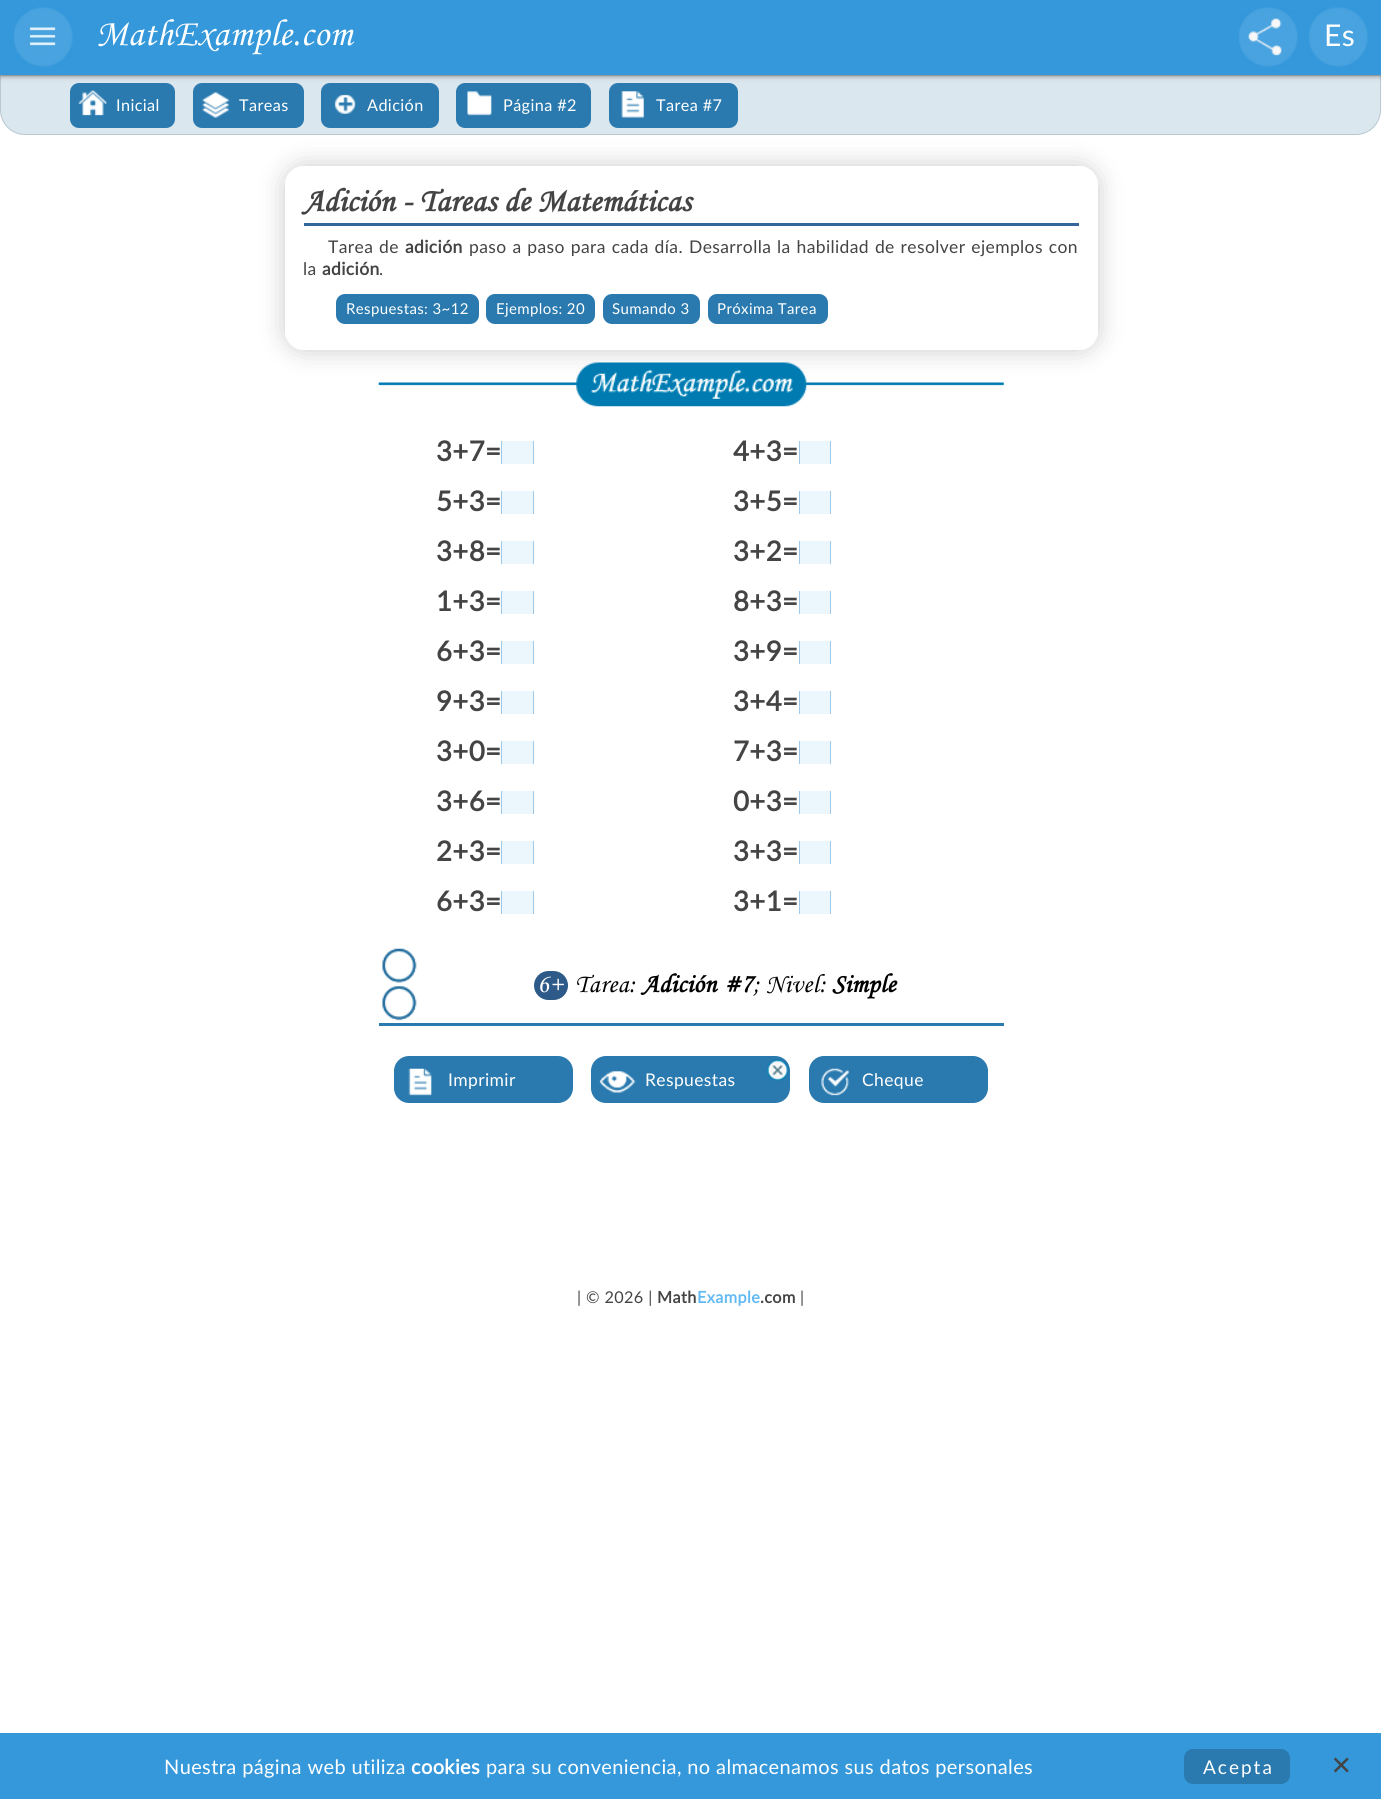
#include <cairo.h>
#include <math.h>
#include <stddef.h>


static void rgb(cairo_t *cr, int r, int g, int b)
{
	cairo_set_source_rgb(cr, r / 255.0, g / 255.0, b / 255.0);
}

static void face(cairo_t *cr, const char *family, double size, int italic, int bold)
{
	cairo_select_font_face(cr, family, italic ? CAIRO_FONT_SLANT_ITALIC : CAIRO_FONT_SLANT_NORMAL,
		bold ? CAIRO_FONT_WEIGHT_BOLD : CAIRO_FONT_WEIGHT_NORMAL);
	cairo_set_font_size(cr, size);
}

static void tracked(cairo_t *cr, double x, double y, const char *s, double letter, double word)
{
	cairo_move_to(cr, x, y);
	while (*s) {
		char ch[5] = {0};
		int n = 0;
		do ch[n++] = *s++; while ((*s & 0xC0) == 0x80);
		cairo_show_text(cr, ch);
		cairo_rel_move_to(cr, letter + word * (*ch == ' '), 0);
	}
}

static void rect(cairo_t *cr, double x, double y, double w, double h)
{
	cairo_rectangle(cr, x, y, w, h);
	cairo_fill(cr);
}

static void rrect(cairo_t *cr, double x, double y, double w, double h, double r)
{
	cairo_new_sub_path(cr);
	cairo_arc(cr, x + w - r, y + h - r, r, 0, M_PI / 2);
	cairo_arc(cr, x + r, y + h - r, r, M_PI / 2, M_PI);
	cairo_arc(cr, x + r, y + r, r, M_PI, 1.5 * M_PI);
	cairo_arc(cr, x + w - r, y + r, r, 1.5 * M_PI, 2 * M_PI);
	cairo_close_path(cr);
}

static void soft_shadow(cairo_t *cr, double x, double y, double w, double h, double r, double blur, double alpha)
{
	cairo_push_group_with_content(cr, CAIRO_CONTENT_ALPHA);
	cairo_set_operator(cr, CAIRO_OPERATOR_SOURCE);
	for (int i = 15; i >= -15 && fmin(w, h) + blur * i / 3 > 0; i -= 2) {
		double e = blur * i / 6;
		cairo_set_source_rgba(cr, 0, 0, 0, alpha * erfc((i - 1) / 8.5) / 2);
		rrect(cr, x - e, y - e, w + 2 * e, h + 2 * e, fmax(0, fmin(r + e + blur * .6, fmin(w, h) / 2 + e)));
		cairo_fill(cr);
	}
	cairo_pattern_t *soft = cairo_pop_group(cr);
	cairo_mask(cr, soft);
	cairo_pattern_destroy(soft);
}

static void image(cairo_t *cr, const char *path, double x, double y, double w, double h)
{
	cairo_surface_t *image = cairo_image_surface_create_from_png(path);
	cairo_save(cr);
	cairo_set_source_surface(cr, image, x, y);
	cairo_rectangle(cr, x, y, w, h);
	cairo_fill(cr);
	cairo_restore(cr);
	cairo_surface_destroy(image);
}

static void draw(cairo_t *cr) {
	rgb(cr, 255, 255, 255);
	cairo_paint(cr);
	rgb(cr, 219, 231, 238);
	cairo_new_path(cr);
	cairo_move_to(cr, 0.5, 75.5);
	cairo_line_to(cr, 1380.5, 75.5);
	cairo_line_to(cr, 1380.5, 110);
	cairo_curve_to(cr, 1380.5, 123.5, 1369.5, 134.5, 1356, 134.5);
	cairo_line_to(cr, 25, 134.5);
	cairo_curve_to(cr, 11.5, 134.5, 0.5, 123.5, 0.5, 110);
	cairo_close_path(cr);
	cairo_fill_preserve(cr);
	rgb(cr, 184, 199, 208);
	cairo_set_line_width(cr, 1);
	cairo_stroke(cr);
	rgb(cr, 42, 122, 175);
	rrect(cr, 70, 83, 105, 45, 9);
	cairo_fill(cr);
	cairo_save(cr);
	cairo_set_fill_rule(cr, CAIRO_FILL_RULE_EVEN_ODD);
	cairo_new_path(cr);
	cairo_move_to(cr, 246, 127);
	cairo_line_to(cr, 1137, 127);
	cairo_line_to(cr, 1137, 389);
	cairo_line_to(cr, 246, 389);
	cairo_close_path(cr);
	cairo_move_to(cr, 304, 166);
	cairo_line_to(cr, 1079, 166);
	cairo_curve_to(cr, 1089.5, 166, 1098, 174.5, 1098, 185);
	cairo_line_to(cr, 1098, 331);
	cairo_curve_to(cr, 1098, 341.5, 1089.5, 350, 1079, 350);
	cairo_line_to(cr, 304, 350);
	cairo_curve_to(cr, 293.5, 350, 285, 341.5, 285, 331);
	cairo_line_to(cr, 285, 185);
	cairo_curve_to(cr, 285, 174.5, 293.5, 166, 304, 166);
	cairo_close_path(cr);
	cairo_clip(cr);
	rgb(cr, 203, 203, 203);
	soft_shadow(cr, 285, 166, 813, 184, 19, 12.5, 1);
	cairo_restore(cr);
	rrect(cr, 193, 83, 111, 45, 9);
	cairo_fill(cr);
	rrect(cr, 321, 83, 118, 45, 9);
	cairo_fill(cr);
	rrect(cr, 456, 83, 135, 45, 9);
	cairo_fill(cr);
	rrect(cr, 609, 83, 129, 45, 9);
	cairo_fill(cr);
	rgb(cr, 94, 94, 94);
	soft_shadow(cr, 0, 0, 1381, 75, 0, 3, 1);
	rgb(cr, 52, 152, 219);
	rect(cr, 0, 0, 1381, 75);
	image(cr, "image0.png", 14, 7, 59, 60);
	face(cr, "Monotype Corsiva", 37.5, 1, 0);
	rgb(cr, 255, 255, 255);
	tracked(cr, 96, 45, "MathExample.com", 0.38, 0);
	image(cr, "image1.png", 1239, 7, 59, 60);
	image(cr, "image2.png", 1309, 7, 59, 60);
	face(cr, "Lato", 30, 0, 0);
	tracked(cr, 1324, 46, "Es", 0.38, 0);
	image(cr, "image3.png", 78, 90, 29, 26);
	face(cr, "Lato", 16.25, 0, 0);
	tracked(cr, 116, 111, "Inicial", 0.38, 0);
	image(cr, "image4.png", 202, 92, 27, 26);
	tracked(cr, 239, 111, "Tareas", 0.38, 0);
	image(cr, "image5.png", 334, 94, 22, 20);
	tracked(cr, 367, 111, "Adición", 0.38, 0);
	image(cr, "image6.png", 467, 91, 25, 25);
	tracked(cr, 503, 111, "Página #2", 0.38, 0);
	image(cr, "image7.png", 621, 91, 23, 27);
	tracked(cr, 656, 111, "Tarea #7", 0.38, 0);
	rgb(cr, 51, 102, 153);
	rect(cr, 304, 223, 775, 3);
	face(cr, "Monotype Corsiva", 32.5, 1, 1);
	rgb(cr, 68, 68, 68);
	tracked(cr, 303, 211, "Adición - Tareas de Matemáticas", 0.38, 0);
	face(cr, "Lato", 17.5, 0, 0);
	tracked(cr, 328, 253, "Tarea de", 0.38, 1);
	face(cr, "Lato", 17.5, 0, 1);
	tracked(cr, 405, 253, "adición", 0.38, 0);
	face(cr, "Lato", 17.5, 0, 0);
	tracked(cr, 469, 253, "paso a paso para cada día.", 0.38, 1);
	tracked(cr, 689, 253, "Desarrolla la habilidad de resolver ejemplos con", 0.38, 1);
	tracked(cr, 303, 275, "la", 0.38, 0);
	face(cr, "Lato", 17.5, 0, 1);
	tracked(cr, 322, 275, "adición", 0.38, 0);
	face(cr, "Lato", 17.5, 0, 0);
	tracked(cr, 379, 275, ".", 0.38, 0);
	rgb(cr, 42, 122, 175);
	rrect(cr, 336, 294, 143, 30, 9);
	cairo_fill(cr);
	face(cr, "Lato", 15, 0, 0);
	rgb(cr, 255, 255, 255);
	tracked(cr, 346, 314, "Respuestas: 3~12", 0.38, 0);
	rgb(cr, 42, 122, 175);
	rrect(cr, 486, 294, 109, 30, 9);
	cairo_fill(cr);
	rgb(cr, 255, 255, 255);
	tracked(cr, 496, 314, "Ejemplos: 20", 0.38, 0);
	rgb(cr, 42, 122, 175);
	rrect(cr, 603, 294, 97, 30, 9);
	cairo_fill(cr);
	rgb(cr, 255, 255, 255);
	tracked(cr, 612, 314, "Sumando 3", 0.38, 0);
	rgb(cr, 42, 122, 175);
	rrect(cr, 708, 294, 120, 30, 9);
	cairo_fill(cr);
	rgb(cr, 255, 255, 255);
	tracked(cr, 717, 314, "Próxima Tarea", 0.38, 0);
	image(cr, "image8.png", 378, 362, 626, 45);
	face(cr, "Lato", 27.5, 0, 1);
	rgb(cr, 68, 68, 68);
	tracked(cr, 436, 461, "3+7=", 0.38, 0);
	rgb(cr, 236, 247, 253);
	rect(cr, 502, 441, 31, 23);
	rgb(cr, 159, 201, 235);
	rect(cr, 533, 441, 1, 23);
	rect(cr, 501, 441, 1, 23);
	rgb(cr, 68, 68, 68);
	tracked(cr, 733, 461, "4+3=", 0.38, 0);
	rgb(cr, 236, 247, 253);
	rect(cr, 800, 441, 30, 23);
	rgb(cr, 159, 201, 235);
	rect(cr, 830, 441, 1, 23);
	rect(cr, 799, 441, 1, 23);
	rgb(cr, 68, 68, 68);
	tracked(cr, 436, 511, "5+3=", 0.38, 0);
	rgb(cr, 236, 247, 253);
	rect(cr, 502, 491, 31, 23);
	rgb(cr, 159, 201, 235);
	rect(cr, 533, 491, 1, 23);
	rect(cr, 501, 491, 1, 23);
	rgb(cr, 68, 68, 68);
	tracked(cr, 733, 511, "3+5=", 0.38, 0);
	rgb(cr, 236, 247, 253);
	rect(cr, 800, 491, 30, 23);
	rgb(cr, 159, 201, 235);
	rect(cr, 830, 491, 1, 23);
	rect(cr, 799, 491, 1, 23);
	rgb(cr, 68, 68, 68);
	tracked(cr, 436, 561, "3+8=", 0.38, 0);
	rgb(cr, 236, 247, 253);
	rect(cr, 502, 541, 31, 23);
	rgb(cr, 159, 201, 235);
	rect(cr, 533, 541, 1, 23);
	rect(cr, 501, 541, 1, 23);
	rgb(cr, 68, 68, 68);
	tracked(cr, 733, 561, "3+2=", 0.38, 0);
	rgb(cr, 236, 247, 253);
	rect(cr, 800, 541, 30, 23);
	rgb(cr, 159, 201, 235);
	rect(cr, 830, 541, 1, 23);
	rect(cr, 799, 541, 1, 23);
	rgb(cr, 68, 68, 68);
	tracked(cr, 436, 611, "1+3=", 0.38, 0);
	rgb(cr, 236, 247, 253);
	rect(cr, 502, 591, 31, 23);
	rgb(cr, 159, 201, 235);
	rect(cr, 533, 591, 1, 23);
	rect(cr, 501, 591, 1, 23);
	rgb(cr, 68, 68, 68);
	tracked(cr, 733, 611, "8+3=", 0.38, 0);
	rgb(cr, 236, 247, 253);
	rect(cr, 800, 591, 30, 23);
	rgb(cr, 159, 201, 235);
	rect(cr, 830, 591, 1, 23);
	rect(cr, 799, 591, 1, 23);
	rgb(cr, 68, 68, 68);
	tracked(cr, 436, 661, "6+3=", 0.38, 0);
	rgb(cr, 236, 247, 253);
	rect(cr, 502, 641, 31, 23);
	rgb(cr, 159, 201, 235);
	rect(cr, 533, 641, 1, 23);
	rect(cr, 501, 641, 1, 23);
	rgb(cr, 68, 68, 68);
	tracked(cr, 733, 661, "3+9=", 0.38, 0);
	rgb(cr, 236, 247, 253);
	rect(cr, 800, 641, 30, 23);
	rgb(cr, 159, 201, 235);
	rect(cr, 830, 641, 1, 23);
	rect(cr, 799, 641, 1, 23);
	rgb(cr, 68, 68, 68);
	tracked(cr, 436, 711, "9+3=", 0.38, 0);
	rgb(cr, 236, 247, 253);
	rect(cr, 502, 691, 31, 23);
	rgb(cr, 159, 201, 235);
	rect(cr, 533, 691, 1, 23);
	rect(cr, 501, 691, 1, 23);
	rgb(cr, 68, 68, 68);
	tracked(cr, 733, 711, "3+4=", 0.38, 0);
	rgb(cr, 236, 247, 253);
	rect(cr, 800, 691, 30, 23);
	rgb(cr, 159, 201, 235);
	rect(cr, 830, 691, 1, 23);
	rect(cr, 799, 691, 1, 23);
	rgb(cr, 68, 68, 68);
	tracked(cr, 436, 761, "3+0=", 0.38, 0);
	rgb(cr, 236, 247, 253);
	rect(cr, 502, 741, 31, 23);
	rgb(cr, 159, 201, 235);
	rect(cr, 533, 741, 1, 23);
	rect(cr, 501, 741, 1, 23);
	rgb(cr, 68, 68, 68);
	tracked(cr, 733, 761, "7+3=", 0.38, 0);
	rgb(cr, 236, 247, 253);
	rect(cr, 800, 741, 30, 23);
	rgb(cr, 159, 201, 235);
	rect(cr, 830, 741, 1, 23);
	rect(cr, 799, 741, 1, 23);
	rgb(cr, 68, 68, 68);
	tracked(cr, 436, 811, "3+6=", 0.38, 0);
	rgb(cr, 236, 247, 253);
	rect(cr, 502, 791, 31, 23);
	rgb(cr, 159, 201, 235);
	rect(cr, 533, 791, 1, 23);
	rect(cr, 501, 791, 1, 23);
	rgb(cr, 68, 68, 68);
	tracked(cr, 733, 811, "0+3=", 0.38, 0);
	rgb(cr, 236, 247, 253);
	rect(cr, 800, 791, 30, 23);
	rgb(cr, 159, 201, 235);
	rect(cr, 830, 791, 1, 23);
	rect(cr, 799, 791, 1, 23);
	rgb(cr, 68, 68, 68);
	tracked(cr, 436, 861, "2+3=", 0.38, 0);
	rgb(cr, 236, 247, 253);
	rect(cr, 502, 841, 31, 23);
	rgb(cr, 159, 201, 235);
	rect(cr, 533, 841, 1, 23);
	rect(cr, 501, 841, 1, 23);
	rgb(cr, 68, 68, 68);
	tracked(cr, 733, 861, "3+3=", 0.38, 0);
	rgb(cr, 236, 247, 253);
	rect(cr, 800, 841, 30, 23);
	rgb(cr, 159, 201, 235);
	rect(cr, 830, 841, 1, 23);
	rect(cr, 799, 841, 1, 23);
	rgb(cr, 68, 68, 68);
	tracked(cr, 436, 911, "6+3=", 0.38, 0);
	rgb(cr, 236, 247, 253);
	rect(cr, 502, 891, 31, 23);
	rgb(cr, 159, 201, 235);
	rect(cr, 533, 891, 1, 23);
	rect(cr, 501, 891, 1, 23);
	rgb(cr, 68, 68, 68);
	tracked(cr, 733, 911, "3+1=", 0.38, 0);
	rgb(cr, 236, 247, 253);
	rect(cr, 800, 891, 30, 23);
	rgb(cr, 159, 201, 235);
	rect(cr, 830, 891, 1, 23);
	rect(cr, 799, 891, 1, 23);
	rgb(cr, 42, 122, 175);
	rect(cr, 379, 1023, 625, 3);
	image(cr, "image9.png", 382, 948, 35, 35);
	image(cr, "image10.png", 382, 986, 35, 35);
	rgb(cr, 45, 90, 136);
	rrect(cr, 534, 971, 34, 29, 14.5);
	cairo_fill(cr);
	face(cr, "Monotype Corsiva", 26.25, 1, 0);
	rgb(cr, 255, 255, 255);
	tracked(cr, 537, 992, "6+", 0.38, 0);
	rgb(cr, 0, 0, 0);
	tracked(cr, 575, 992, "Tarea:", 0.38, 0);
	face(cr, "Monotype Corsiva", 26.25, 1, 1);
	tracked(cr, 642, 992, "Adición #7", 0.38, 0);
	face(cr, "Monotype Corsiva", 26.25, 1, 0);
	tracked(cr, 753, 992, "; Nivel:", 0.38, 0);
	face(cr, "Monotype Corsiva", 26.25, 1, 1);
	tracked(cr, 832, 992, "Simple", 0.38, 0);
	rgb(cr, 42, 122, 175);
	rrect(cr, 394, 1056, 179, 47, 15);
	cairo_fill(cr);
	image(cr, "image11.png", 408, 1068, 24, 28);
	face(cr, "Lato", 17.5, 0, 0);
	rgb(cr, 255, 255, 255);
	tracked(cr, 448, 1086, "Imprimir", 0.38, 0);
	rgb(cr, 42, 122, 175);
	cairo_new_path(cr);
	cairo_move_to(cr, 606, 1056);
	cairo_line_to(cr, 765, 1056);
	cairo_line_to(cr, 765, 1103);
	cairo_line_to(cr, 606, 1103);
	cairo_curve_to(cr, 597.5, 1103, 591, 1096.5, 591, 1088);
	cairo_line_to(cr, 591, 1071);
	cairo_curve_to(cr, 591, 1062.5, 597.5, 1056, 606, 1056);
	cairo_close_path(cr);
	cairo_fill(cr);
	image(cr, "image12.png", 599, 1071, 37, 22);
	rgb(cr, 255, 255, 255);
	tracked(cr, 645, 1086, "Respuestas", 0.38, 0);
	rgb(cr, 42, 122, 175);
	cairo_new_path(cr);
	cairo_move_to(cr, 765, 1056);
	cairo_line_to(cr, 775, 1056);
	cairo_curve_to(cr, 783.5, 1056, 790, 1062.5, 790, 1071);
	cairo_line_to(cr, 790, 1088);
	cairo_curve_to(cr, 790, 1096.5, 783.5, 1103, 775, 1103);
	cairo_line_to(cr, 765, 1103);
	cairo_close_path(cr);
	cairo_fill(cr);
	image(cr, "image13.png", 766, 1059, 23, 23);
	rrect(cr, 809, 1056, 179, 47, 15);
	cairo_fill(cr);
	image(cr, "image14.png", 821, 1068, 28, 28);
	rgb(cr, 255, 255, 255);
	tracked(cr, 862, 1086, "Cheque", 0.38, 0);
	face(cr, "Lato", 16.25, 0, 0);
	rgb(cr, 68, 68, 68);
	tracked(cr, 577, 1303, "| © 2026 |", 0.38, 0);
	face(cr, "Lato", 16.25, 0, 1);
	tracked(cr, 657, 1303, "Math", 0.38, 0);
	rgb(cr, 99, 185, 243);
	tracked(cr, 697, 1303, "Example", 0.38, 0);
	rgb(cr, 68, 68, 68);
	tracked(cr, 760, 1303, ".com", 0.38, 0);
	face(cr, "Lato", 16.25, 0, 0);
	tracked(cr, 800, 1303, "|", 0.38, 0);
	rgb(cr, 52, 152, 219);
	rect(cr, 0, 1733, 1381, 66);
	face(cr, "Lato", 20, 0, 0);
	rgb(cr, 255, 255, 255);
	tracked(cr, 164, 1774, "Nuestra página web utiliza", 0.38, 0);
	face(cr, "Lato", 20, 0, 1);
	tracked(cr, 411, 1774, "cookies", 0.38, 0);
	face(cr, "Lato", 20, 0, 0);
	tracked(cr, 486, 1774, "para su conveniencia, no almacenamos sus datos personales", 0.38, 0);
	rgb(cr, 42, 122, 175);
	rrect(cr, 1184, 1749, 106, 35, 9);
	cairo_fill(cr);
	face(cr, "Lato", 19, 0, 0);
	rgb(cr, 255, 255, 255);
	tracked(cr, 1203, 1774, "Acepta", 2, 0);
	image(cr, "image15.png", 1333, 1757, 16, 16);
}

int main(void) {
	cairo_surface_t *surface = cairo_image_surface_create(CAIRO_FORMAT_RGB24, 1381, 1799);
	cairo_t *cr = cairo_create(surface);
	cairo_font_options_t *options = cairo_font_options_create();
	cairo_font_options_set_hint_metrics(options, CAIRO_HINT_METRICS_OFF);
	cairo_font_options_set_hint_style(options, CAIRO_HINT_STYLE_NONE);
	cairo_set_font_options(cr, options);
	cairo_set_miter_limit(cr, 4);
	draw(cr);
	cairo_surface_write_to_png(surface, "render.png");
	cairo_font_options_destroy(options);
	cairo_destroy(cr);
	cairo_surface_destroy(surface);
	return 0;
}
